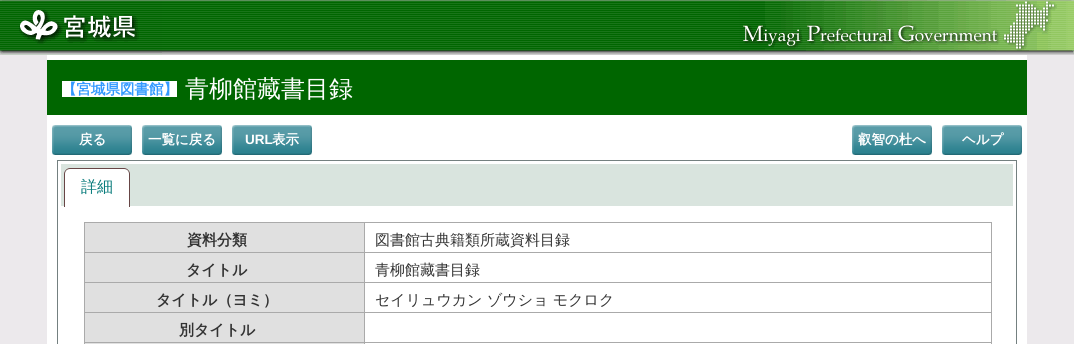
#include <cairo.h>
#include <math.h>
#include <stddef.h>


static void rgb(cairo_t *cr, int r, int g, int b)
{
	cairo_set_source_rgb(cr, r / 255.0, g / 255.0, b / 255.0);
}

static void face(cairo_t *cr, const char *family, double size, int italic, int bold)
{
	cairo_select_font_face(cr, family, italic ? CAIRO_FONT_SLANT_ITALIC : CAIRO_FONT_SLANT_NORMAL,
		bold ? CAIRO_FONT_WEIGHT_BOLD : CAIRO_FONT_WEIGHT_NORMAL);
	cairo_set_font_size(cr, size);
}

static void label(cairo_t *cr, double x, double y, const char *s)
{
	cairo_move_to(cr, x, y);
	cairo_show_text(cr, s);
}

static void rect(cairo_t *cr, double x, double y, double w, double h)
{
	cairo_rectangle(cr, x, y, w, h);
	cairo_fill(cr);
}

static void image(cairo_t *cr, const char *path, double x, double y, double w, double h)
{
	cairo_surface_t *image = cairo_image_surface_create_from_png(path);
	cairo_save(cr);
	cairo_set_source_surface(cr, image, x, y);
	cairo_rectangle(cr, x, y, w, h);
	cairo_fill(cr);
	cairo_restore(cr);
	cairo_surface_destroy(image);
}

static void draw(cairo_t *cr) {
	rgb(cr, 236, 233, 236);
	cairo_paint(cr);
	image(cr, "image0.png", 162, 0, 912, 55);
	image(cr, "image1.png", 0, 0, 162, 55);
	image(cr, "image2.png", 739, 0, 335, 53);
	rgb(cr, 255, 255, 255);
	rect(cr, 47, 55, 980, 289);
	rgb(cr, 0, 102, 0);
	rect(cr, 47, 60, 980, 55);
	rgb(cr, 255, 255, 255);
	rect(cr, 62, 81, 115, 16);
	face(cr, "WenQuanYi Zen Hei", 14.5, 0, 1);
	rgb(cr, 51, 153, 255);
	label(cr, 62, 94, "【宮城県図書館】");
	face(cr, "WenQuanYi Zen Hei Medium", 24, 0, 0);
	rgb(cr, 255, 255, 255);
	label(cr, 185, 97, "青柳館藏書目録");
	image(cr, "image3.png", 52, 125, 80, 30);
	face(cr, "WenQuanYi Zen Hei", 13.5, 0, 1);
	label(cr, 79, 144, "戻る");
	image(cr, "image3.png", 142, 125, 80, 30);
	label(cr, 148, 144, "一覧に戻る");
	image(cr, "image3.png", 232, 125, 80, 30);
	face(cr, "Liberation Sans", 13.5, 0, 1);
	label(cr, 245, 144, "URL");
	face(cr, "WenQuanYi Zen Hei", 13.5, 0, 1);
	label(cr, 272, 144, "表示");
	image(cr, "image3.png", 852, 125, 80, 30);
	label(cr, 858, 144, "叡智の杜へ");
	image(cr, "image3.png", 942, 125, 80, 30);
	label(cr, 962, 144, "ヘルプ");
	cairo_rectangle(cr, 57.5, 160.5, 959, 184);
	rgb(cr, 116, 128, 128);
	cairo_set_line_width(cr, 1);
	cairo_stroke(cr);
	rgb(cr, 217, 228, 222);
	rect(cr, 61, 164, 952, 42);
	rgb(cr, 255, 255, 255);
	cairo_new_path(cr);
	cairo_move_to(cr, 70, 169);
	cairo_line_to(cr, 124, 169);
	cairo_curve_to(cr, 127, 169, 129, 171, 129, 174);
	cairo_line_to(cr, 129, 207);
	cairo_line_to(cr, 65, 207);
	cairo_line_to(cr, 65, 174);
	cairo_curve_to(cr, 65, 171, 67, 169, 70, 169);
	cairo_close_path(cr);
	cairo_fill(cr);
	rgb(cr, 103, 69, 69);
	cairo_set_fill_rule(cr, CAIRO_FILL_RULE_EVEN_ODD);
	cairo_new_path(cr);
	cairo_move_to(cr, 70, 168);
	cairo_line_to(cr, 124, 168);
	cairo_curve_to(cr, 127, 168, 130, 171, 130, 174);
	cairo_line_to(cr, 130, 207);
	cairo_line_to(cr, 64, 207);
	cairo_line_to(cr, 64, 174);
	cairo_curve_to(cr, 64, 171, 67, 168, 70, 168);
	cairo_close_path(cr);
	cairo_move_to(cr, 70, 169);
	cairo_line_to(cr, 124, 169);
	cairo_curve_to(cr, 127, 169, 129, 171, 129, 174);
	cairo_line_to(cr, 129, 207);
	cairo_line_to(cr, 65, 207);
	cairo_line_to(cr, 65, 174);
	cairo_curve_to(cr, 65, 171, 67, 169, 70, 169);
	cairo_close_path(cr);
	cairo_fill(cr);
	face(cr, "WenQuanYi Zen Hei Medium", 16, 0, 0);
	rgb(cr, 9, 124, 124);
	label(cr, 81, 192, "詳細");
	rgb(cr, 224, 224, 224);
	rect(cr, 85, 223, 279, 29);
	cairo_rectangle(cr, 84.5, 222.5, 907, 30);
	rgb(cr, 170, 170, 170);
	cairo_stroke(cr);
	face(cr, "WenQuanYi Zen Hei", 15, 0, 1);
	rgb(cr, 51, 51, 51);
	label(cr, 187, 245, "資料分類");
	rgb(cr, 170, 170, 170);
	rect(cr, 364, 223, 1, 29);
	face(cr, "WenQuanYi Zen Hei Medium", 15, 0, 0);
	rgb(cr, 51, 51, 51);
	label(cr, 375, 245, "図書館古典籍類所蔵資料目録");
	rgb(cr, 224, 224, 224);
	rect(cr, 85, 253, 279, 29);
	rgb(cr, 170, 170, 170);
	rect(cr, 991, 253, 1, 91);
	rect(cr, 84, 282, 908, 1);
	rect(cr, 84, 253, 1, 30);
	face(cr, "WenQuanYi Zen Hei", 15, 0, 1);
	rgb(cr, 51, 51, 51);
	label(cr, 186, 275, "タイトル");
	rgb(cr, 170, 170, 170);
	rect(cr, 364, 253, 1, 29);
	face(cr, "WenQuanYi Zen Hei Medium", 15, 0, 0);
	rgb(cr, 51, 51, 51);
	label(cr, 375, 275, "青柳館藏書目録");
	rgb(cr, 224, 224, 224);
	rect(cr, 85, 283, 279, 29);
	rgb(cr, 170, 170, 170);
	rect(cr, 84, 312, 908, 1);
	rect(cr, 84, 283, 1, 30);
	face(cr, "WenQuanYi Zen Hei", 15, 0, 1);
	rgb(cr, 51, 51, 51);
	label(cr, 156, 305, "タイトル（ヨミ）");
	rgb(cr, 170, 170, 170);
	rect(cr, 364, 283, 1, 29);
	face(cr, "WenQuanYi Zen Hei Medium", 15, 0, 0);
	rgb(cr, 51, 51, 51);
	label(cr, 375, 305, "セイリュウカン ゾウショ モクロク");
	rgb(cr, 224, 224, 224);
	rect(cr, 85, 313, 279, 29);
	rgb(cr, 170, 170, 170);
	rect(cr, 84, 342, 908, 1);
	rect(cr, 84, 313, 1, 30);
	face(cr, "WenQuanYi Zen Hei", 15, 0, 1);
	rgb(cr, 51, 51, 51);
	label(cr, 179, 335, "別タイトル");
	rgb(cr, 170, 170, 170);
	rect(cr, 364, 313, 1, 29);
	rgb(cr, 224, 224, 224);
	rect(cr, 84, 343, 280, 1);
	rgb(cr, 170, 170, 170);
	rect(cr, 84, 343, 1, 1);
	rect(cr, 364, 343, 1, 1);
}

int main(void) {
	cairo_surface_t *surface = cairo_image_surface_create(CAIRO_FORMAT_RGB24, 1074, 344);
	cairo_t *cr = cairo_create(surface);
	cairo_font_options_t *options = cairo_font_options_create();
	cairo_font_options_set_hint_metrics(options, CAIRO_HINT_METRICS_OFF);
	cairo_font_options_set_hint_style(options, CAIRO_HINT_STYLE_NONE);
	cairo_set_font_options(cr, options);
	cairo_set_miter_limit(cr, 4);
	draw(cr);
	cairo_surface_write_to_png(surface, "render.png");
	cairo_font_options_destroy(options);
	cairo_destroy(cr);
	cairo_surface_destroy(surface);
	return 0;
}
